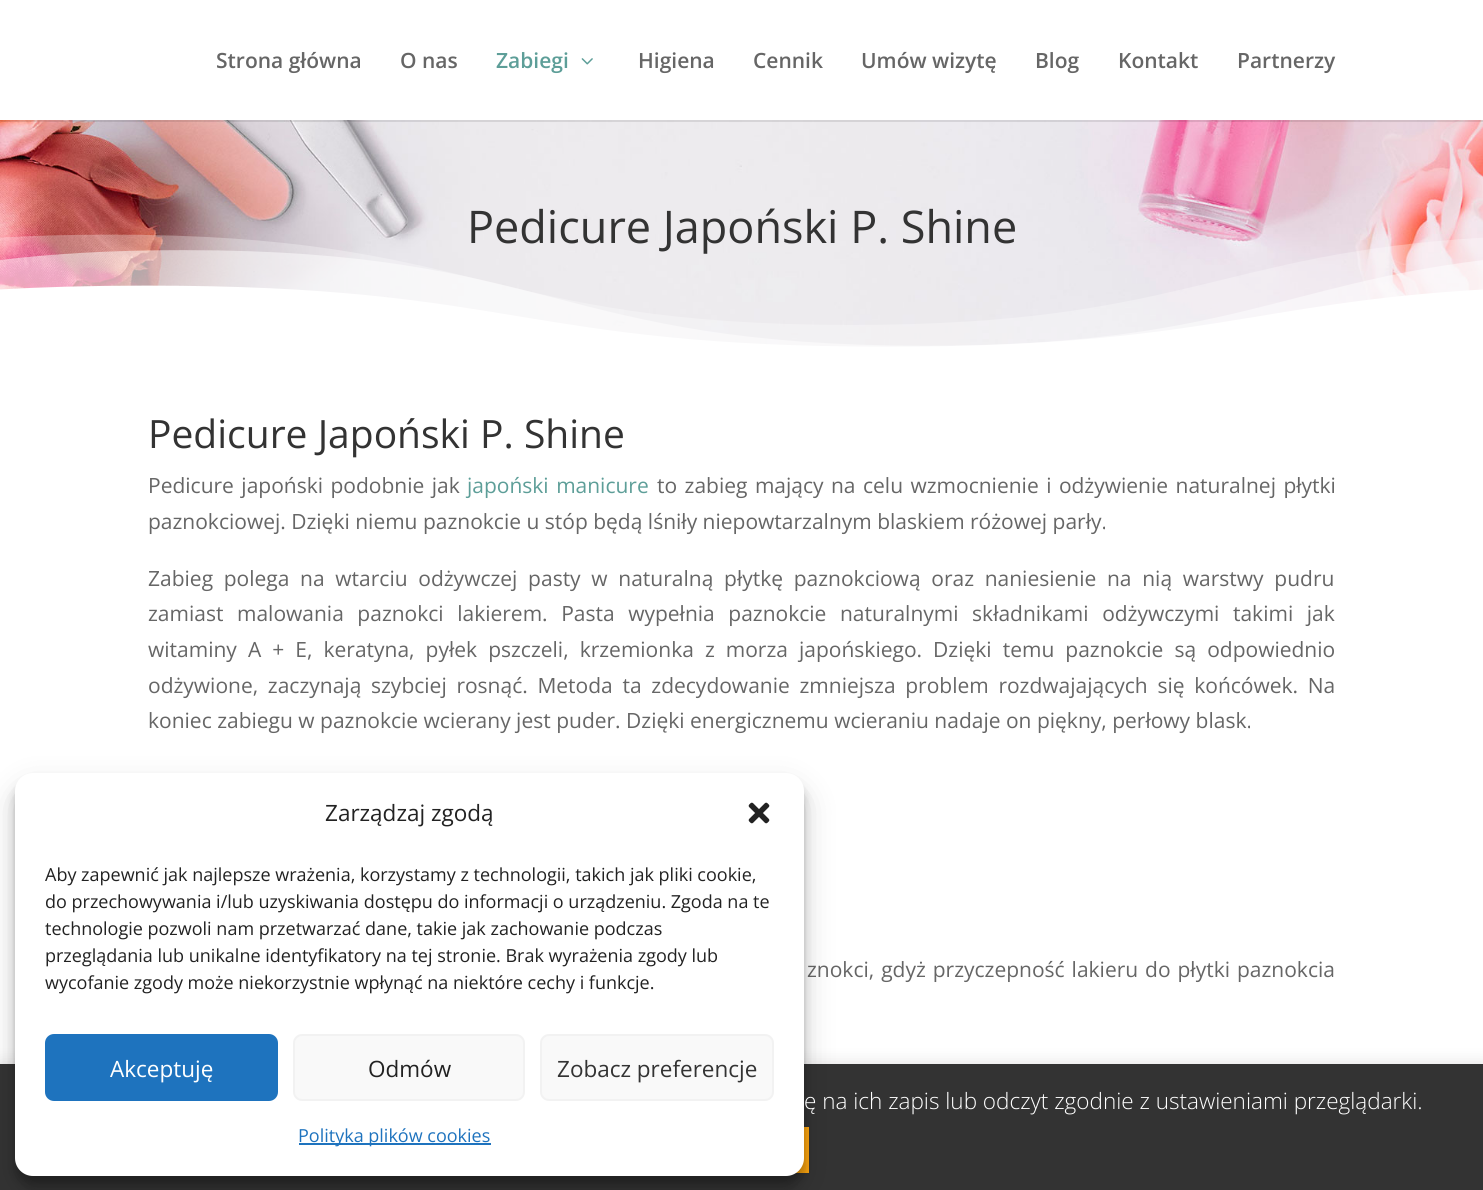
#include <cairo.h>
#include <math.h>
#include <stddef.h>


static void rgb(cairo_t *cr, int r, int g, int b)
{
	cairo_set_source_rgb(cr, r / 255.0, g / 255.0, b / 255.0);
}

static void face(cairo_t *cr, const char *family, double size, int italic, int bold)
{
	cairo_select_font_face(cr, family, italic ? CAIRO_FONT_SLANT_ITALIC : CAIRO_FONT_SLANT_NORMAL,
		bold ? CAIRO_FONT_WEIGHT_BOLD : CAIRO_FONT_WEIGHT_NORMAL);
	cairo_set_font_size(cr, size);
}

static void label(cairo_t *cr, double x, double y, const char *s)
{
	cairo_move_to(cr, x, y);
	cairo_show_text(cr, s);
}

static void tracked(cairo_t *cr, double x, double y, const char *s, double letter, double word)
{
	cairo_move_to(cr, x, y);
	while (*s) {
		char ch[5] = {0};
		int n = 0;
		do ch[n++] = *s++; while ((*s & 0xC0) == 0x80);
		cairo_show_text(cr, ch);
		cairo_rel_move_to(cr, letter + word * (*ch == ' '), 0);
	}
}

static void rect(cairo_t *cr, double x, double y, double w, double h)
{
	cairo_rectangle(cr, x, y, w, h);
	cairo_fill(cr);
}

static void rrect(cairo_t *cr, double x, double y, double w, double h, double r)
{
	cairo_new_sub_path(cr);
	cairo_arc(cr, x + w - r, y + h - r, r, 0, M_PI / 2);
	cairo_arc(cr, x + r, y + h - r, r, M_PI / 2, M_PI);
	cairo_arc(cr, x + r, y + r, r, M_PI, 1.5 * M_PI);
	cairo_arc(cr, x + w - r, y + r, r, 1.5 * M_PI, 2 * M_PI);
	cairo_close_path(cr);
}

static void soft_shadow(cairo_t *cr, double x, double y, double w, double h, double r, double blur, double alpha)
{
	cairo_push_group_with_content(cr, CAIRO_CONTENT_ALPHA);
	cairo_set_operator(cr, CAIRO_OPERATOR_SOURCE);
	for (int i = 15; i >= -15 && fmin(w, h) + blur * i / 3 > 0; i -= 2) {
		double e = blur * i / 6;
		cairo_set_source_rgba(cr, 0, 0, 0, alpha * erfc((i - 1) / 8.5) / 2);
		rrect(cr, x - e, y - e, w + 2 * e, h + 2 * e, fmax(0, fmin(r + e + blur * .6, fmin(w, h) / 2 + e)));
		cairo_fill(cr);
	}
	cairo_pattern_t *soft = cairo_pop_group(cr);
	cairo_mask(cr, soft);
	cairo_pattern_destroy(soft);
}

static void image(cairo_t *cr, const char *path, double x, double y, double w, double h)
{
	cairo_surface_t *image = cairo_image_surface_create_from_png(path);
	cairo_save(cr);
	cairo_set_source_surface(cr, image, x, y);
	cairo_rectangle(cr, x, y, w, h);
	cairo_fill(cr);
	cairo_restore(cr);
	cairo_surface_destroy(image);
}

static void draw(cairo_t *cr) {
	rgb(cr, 255, 255, 255);
	cairo_paint(cr);
	image(cr, "image1.png", 0, 120, 1483, 227);
	cairo_set_source_rgba(cr, 0, 0, 0, 0.1);
	cairo_new_path(cr);
	cairo_move_to(cr, 0, 120);
	cairo_line_to(cr, 0, 122);
	cairo_line_to(cr, 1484, 122);
	cairo_line_to(cr, 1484, 2);
	cairo_line_to(cr, 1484, 120);
	cairo_close_path(cr);
	cairo_fill(cr);
	face(cr, "Open Sans SemiBold", 21, 0, 0);
	rgb(cr, 102, 102, 102);
	label(cr, 216, 68, "Strona główna");
	label(cr, 400, 68, "O nas");
	rgb(cr, 93, 158, 152);
	label(cr, 496, 68, "Zabiegi");
	image(cr, "image0.png", 581, 58, 12, 7);
	rgb(cr, 102, 102, 102);
	label(cr, 638, 68, "Higiena");
	label(cr, 753, 68, "Cennik");
	label(cr, 861, 68, "Umów wizytę");
	label(cr, 1035, 68, "Blog");
	label(cr, 1118, 68, "Kontakt");
	label(cr, 1237, 68, "Partnerzy");
	face(cr, "Open Sans", 45, 0, 0);
	rgb(cr, 51, 51, 51);
	label(cr, 467, 243, "Pedicure Japoński P. Shine");
	image(cr, "image2.png", 0, 234, 1483, 150);
	face(cr, "Open Sans", 39, 0, 0);
	label(cr, 148, 448, "Pedicure Japoński P. Shine");
	face(cr, "Open Sans", 21, 0, 0);
	rgb(cr, 102, 102, 102);
	tracked(cr, 148, 493, "Pedicure japoński podobnie jak", 0, 2);
	rgb(cr, 93, 158, 152);
	tracked(cr, 467, 493, "japoński manicure", 0, 2);
	rgb(cr, 102, 102, 102);
	tracked(cr, 657, 493, "to zabieg mający na celu wzmocnienie i odżywienie naturalnej płytki", 0, 2);
	label(cr, 148, 529, "paznokciowej. Dzięki niemu paznokcie u stóp będą lśniły niepowtarzalnym blaskiem różowej parły.");
	tracked(cr, 148, 586, "Zabieg polega na wtarciu odżywczej pasty w naturalną płytkę paznokciową oraz naniesienie na nią warstwy pudru", 0, 5.25);
	tracked(cr, 148, 621, "zamiast malowania paznokci lakierem. Pasta wypełnia paznokcie naturalnymi składnikami odżywczymi takimi jak", 0, 8.1);
	tracked(cr, 148, 657, "witaminy A + E, keratyna, pyłek pszczeli, krzemionka z morza japońskiego. Dzięki temu paznokcie są odpowiednio", 0, 5.6);
	tracked(cr, 148, 693, "odżywione, zaczynają szybciej rosnąć. Metoda ta zdecydowanie zmniejsza problem rozdwajających się końcówek. Na", 0, 4.25);
	label(cr, 148, 728, "koniec zabiegu w paznokcie wcierany jest puder. Dzięki energicznemu wcieraniu nadaje on piękny, perłowy blask.");
	tracked(cr, 807, 977, "znokci, gdyż przyczepność lakieru do płytki paznokcia", 0, 1.5);
	rgb(cr, 172, 171, 171);
	soft_shadow(cr, 0, 1062, 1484, 128, 0, 7.5, 0.3);
	rgb(cr, 51, 51, 51);
	rect(cr, 0, 1064, 1483, 126);
	rgb(cr, 255, 167, 15);
	rect(cr, 796, 1127, 13, 46);
	rgb(cr, 0, 0, 0);
	soft_shadow(cr, 15, 782, 789, 403, 18, 4.5, 0.23);
	soft_shadow(cr, 15, 788, 789, 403, 18, 15, 0.19);
	rgb(cr, 255, 255, 255);
	rrect(cr, 15, 773, 789, 403, 18);
	cairo_fill(cr);
	face(cr, "Open Sans", 22.5, 0, 0);
	rgb(cr, 34, 34, 34);
	label(cr, 325, 821, "Zarządzaj zgodą");
	image(cr, "image3.png", 748, 802, 22, 22);
	face(cr, "Open Sans", 18, 0, 0);
	label(cr, 45, 881, "Aby zapewnić jak najlepsze wrażenia, korzystamy z technologii, takich jak pliki cookie,");
	label(cr, 45, 908, "do przechowywania i/lub uzyskiwania dostępu do informacji o urządzeniu. Zgoda na te");
	label(cr, 45, 935, "technologie pozwoli nam przetwarzać dane, takie jak zachowanie podczas");
	label(cr, 45, 962, "przeglądania lub unikalne identyfikatory na tej stronie. Brak wyrażenia zgody lub");
	label(cr, 45, 989, "wycofanie zgody może niekorzystnie wpłynąć na niektóre cechy i funkcje.");
	rgb(cr, 30, 115, 190);
	rrect(cr, 46, 1035, 231, 65, 8);
	cairo_fill_preserve(cr);
	cairo_stroke(cr);
	face(cr, "Open Sans", 22.5, 0, 0);
	rgb(cr, 255, 255, 255);
	label(cr, 110, 1077, "Akceptuję");
	rgb(cr, 249, 249, 249);
	rrect(cr, 294, 1035, 230, 65, 8);
	cairo_fill_preserve(cr);
	rgb(cr, 242, 242, 242);
	cairo_stroke(cr);
	rgb(cr, 34, 34, 34);
	label(cr, 368, 1077, "Odmów");
	rgb(cr, 249, 249, 249);
	rrect(cr, 541, 1035, 232, 65, 8);
	cairo_fill_preserve(cr);
	rgb(cr, 242, 242, 242);
	cairo_stroke(cr);
	rgb(cr, 51, 51, 51);
	label(cr, 557, 1077, "Zobacz preferencje");
	rgb(cr, 30, 115, 190);
	rect(cr, 299, 1143, 192, 2);
	face(cr, "Open Sans", 18, 0, 0);
	label(cr, 298, 1142, "Polityka plików cookies");
	face(cr, "Open Sans Light", 22.5, 0, 0);
	rgb(cr, 255, 255, 255);
	label(cr, 804, 1109, "ę na ich zapis lub odczyt zgodnie z ustawieniami przeglądarki.");
}

int main(void) {
	cairo_surface_t *surface = cairo_image_surface_create(CAIRO_FORMAT_RGB24, 1483, 1190);
	cairo_t *cr = cairo_create(surface);
	cairo_font_options_t *options = cairo_font_options_create();
	cairo_font_options_set_hint_metrics(options, CAIRO_HINT_METRICS_OFF);
	cairo_font_options_set_hint_style(options, CAIRO_HINT_STYLE_NONE);
	cairo_set_font_options(cr, options);
	cairo_set_miter_limit(cr, 4);
	draw(cr);
	cairo_surface_write_to_png(surface, "render.png");
	cairo_font_options_destroy(options);
	cairo_destroy(cr);
	cairo_surface_destroy(surface);
	return 0;
}
